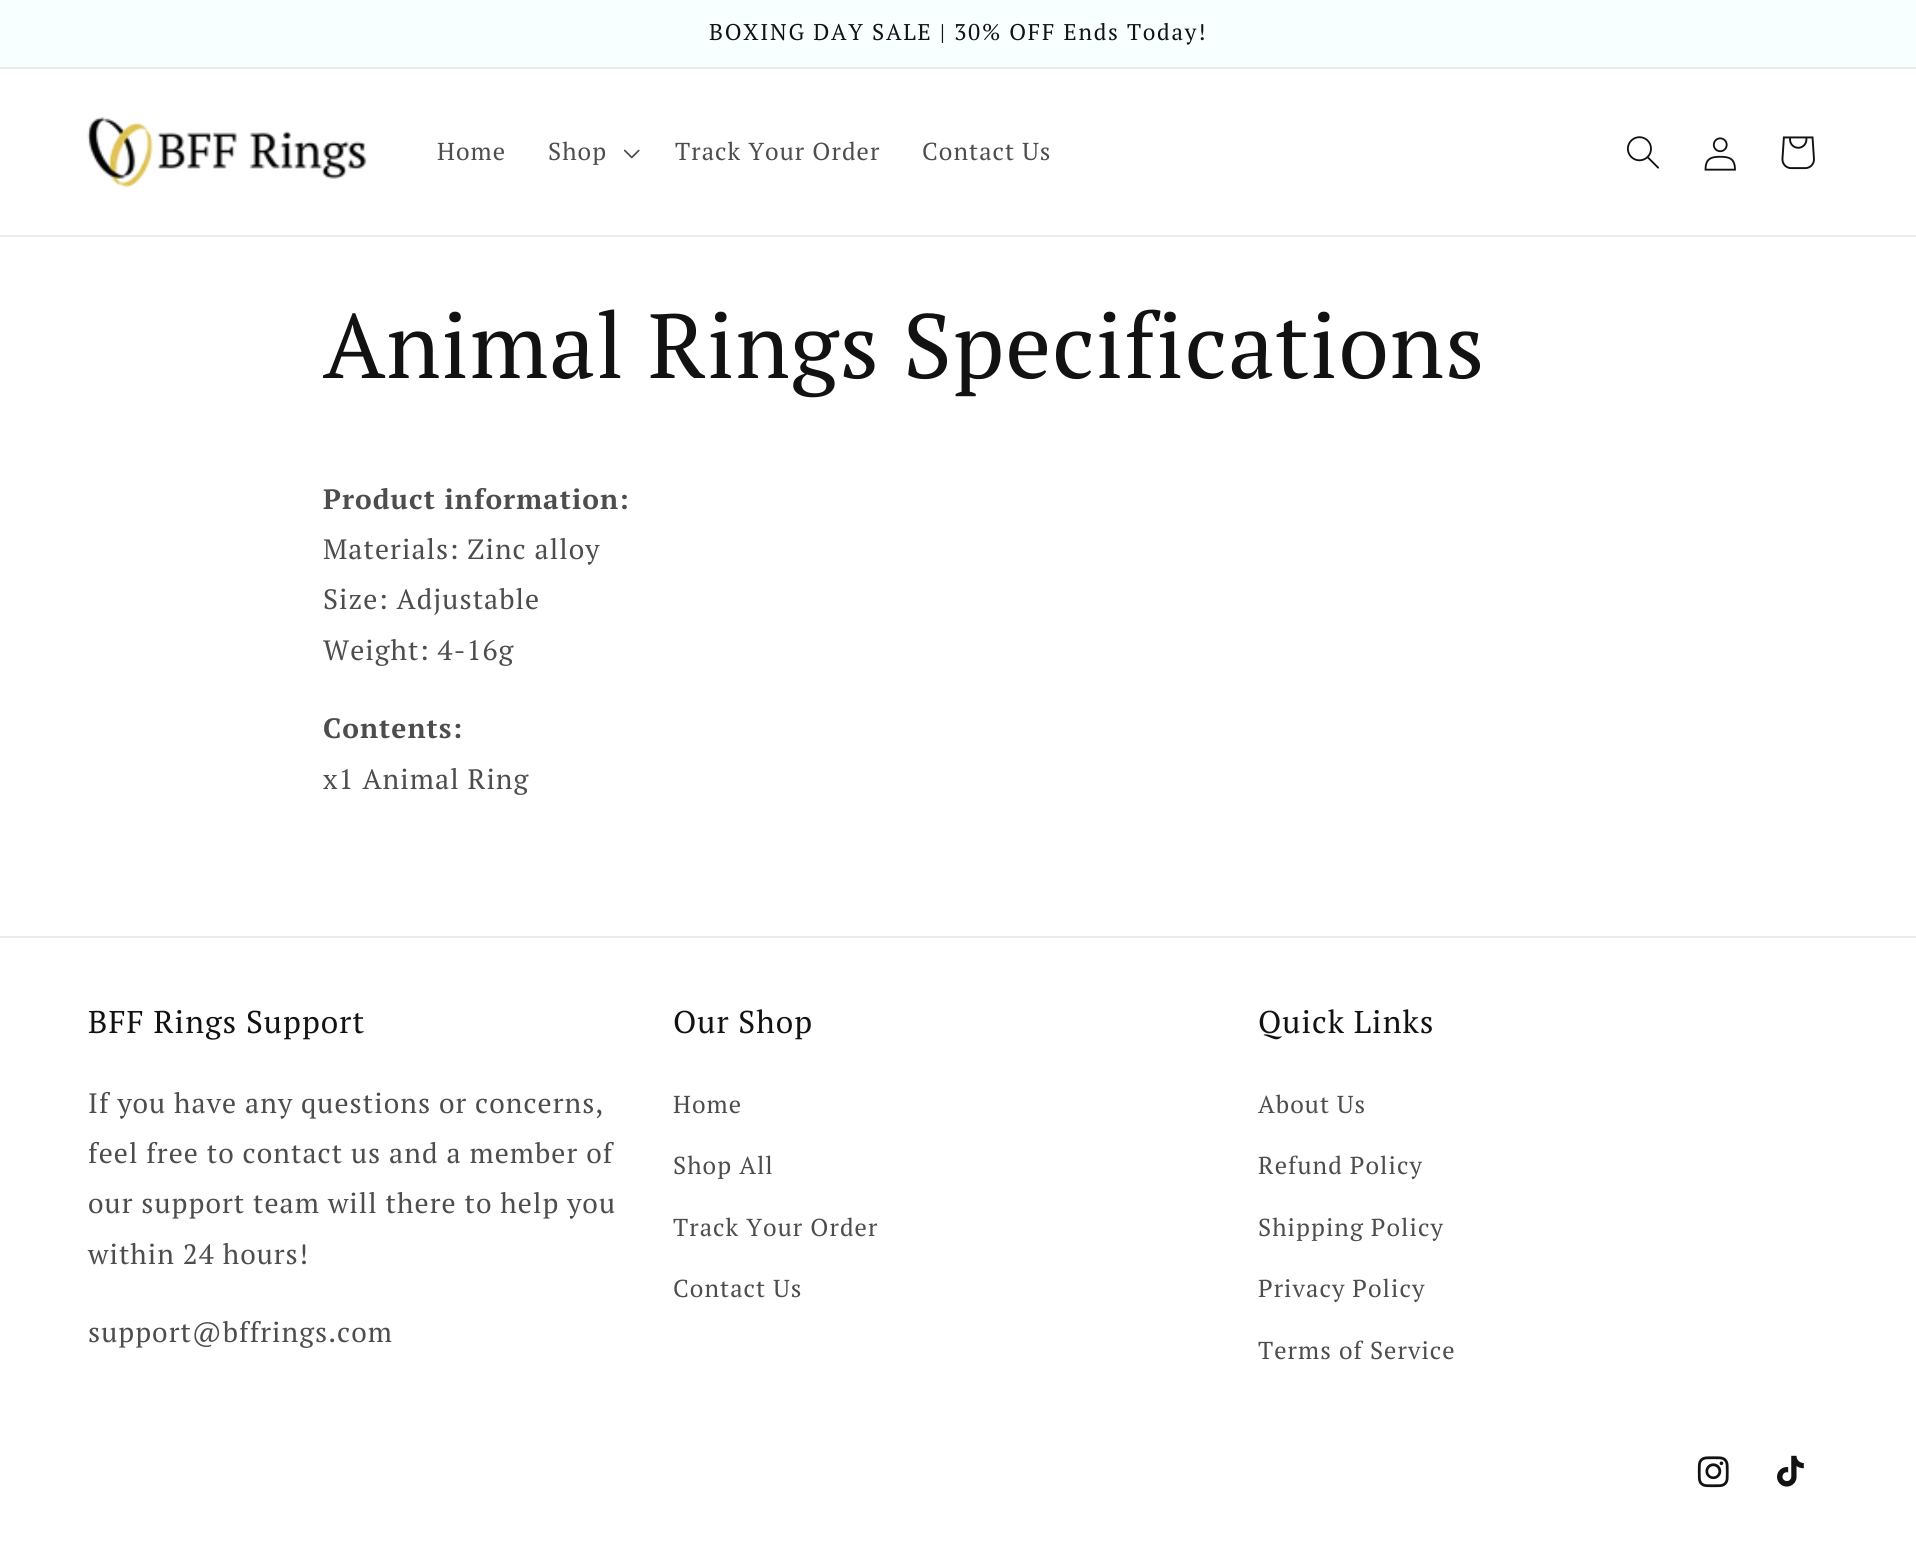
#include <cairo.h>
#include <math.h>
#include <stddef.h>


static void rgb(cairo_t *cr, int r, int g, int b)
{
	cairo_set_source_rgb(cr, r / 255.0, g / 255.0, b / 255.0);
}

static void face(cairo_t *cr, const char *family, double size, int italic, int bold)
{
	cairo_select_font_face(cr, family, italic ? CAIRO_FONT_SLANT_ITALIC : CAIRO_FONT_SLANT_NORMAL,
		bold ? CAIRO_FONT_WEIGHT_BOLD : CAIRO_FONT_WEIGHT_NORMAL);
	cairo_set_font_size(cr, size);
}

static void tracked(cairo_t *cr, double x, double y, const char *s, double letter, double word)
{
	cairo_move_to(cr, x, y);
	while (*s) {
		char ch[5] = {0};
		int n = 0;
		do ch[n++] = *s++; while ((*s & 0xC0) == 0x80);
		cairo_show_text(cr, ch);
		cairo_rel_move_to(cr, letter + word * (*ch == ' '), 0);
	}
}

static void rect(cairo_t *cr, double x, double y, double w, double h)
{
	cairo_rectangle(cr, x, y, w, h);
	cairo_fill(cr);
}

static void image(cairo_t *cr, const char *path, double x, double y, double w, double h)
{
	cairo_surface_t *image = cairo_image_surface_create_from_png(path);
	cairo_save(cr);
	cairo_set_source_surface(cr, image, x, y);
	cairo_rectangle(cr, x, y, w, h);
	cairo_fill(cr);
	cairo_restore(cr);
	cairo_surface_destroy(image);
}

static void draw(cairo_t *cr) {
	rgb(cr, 255, 255, 255);
	cairo_paint(cr);
	rgb(cr, 236, 236, 236);
	rect(cr, 0, 68, 1916, 1);
	rgb(cr, 247, 255, 255);
	rect(cr, 0, 0, 1916, 67);
	rgb(cr, 229, 236, 236);
	rect(cr, 0, 67, 1916, 1);
	face(cr, "PT Serif", 22.75, 0, 0);
	rgb(cr, 18, 18, 18);
	tracked(cr, 709, 40, "BOXING DAY SALE | 30% OFF Ends Today!", 1.75, 0);
	rgb(cr, 236, 236, 236);
	rect(cr, 0, 235, 1916, 2);
	image(cr, "image0.png", 87, 117, 280, 71);
	face(cr, "PT Serif", 24.5, 0, 0);
	rgb(cr, 77, 77, 77);
	tracked(cr, 437, 160, "Home", 1.05, 0);
	tracked(cr, 548, 160, "Shop", 1.05, 0);
	image(cr, "image1.png", 623, 149, 17, 10);
	tracked(cr, 675, 160, "Track Your Order", 1.05, 0);
	tracked(cr, 922, 160, "Contact Us", 1.05, 0);
	image(cr, "image2.png", 1627, 136, 32, 33);
	image(cr, "image3.png", 1704, 137, 32, 34);
	image(cr, "image4.png", 1781, 136, 34, 34);
	face(cr, "PT Serif", 91, 0, 0);
	rgb(cr, 18, 18, 18);
	tracked(cr, 323, 378, "Animal Rings Specifications", 1.05, 0);
	face(cr, "PT Serif", 28, 0, 1);
	rgb(cr, 77, 77, 77);
	tracked(cr, 323, 509, "Product information:", 1.05, 0);
	face(cr, "PT Serif", 28, 0, 0);
	tracked(cr, 323, 559, "Materials: Zinc alloy", 1.05, 0);
	tracked(cr, 323, 609, "Size: Adjustable", 1.05, 0);
	tracked(cr, 323, 660, "Weight: 4-16g", 1.05, 0);
	face(cr, "PT Serif", 28, 0, 1);
	tracked(cr, 323, 738, "Contents:", 1.05, 0);
	face(cr, "PT Serif", 28, 0, 0);
	tracked(cr, 323, 789, "x1 Animal Ring", 1.05, 0);
	rgb(cr, 236, 236, 236);
	rect(cr, 0, 936, 1916, 2);
	face(cr, "PT Serif", 31.5, 0, 0);
	rgb(cr, 18, 18, 18);
	tracked(cr, 88, 1033, "BFF Rings Support", 1.05, 0);
	face(cr, "PT Serif", 28, 0, 0);
	rgb(cr, 77, 77, 77);
	tracked(cr, 88, 1113, "If you have any questions or concerns,", 1.05, 0);
	tracked(cr, 88, 1163, "feel free to contact us and a member of", 1.05, 0);
	tracked(cr, 88, 1213, "our support team will there to help you", 1.05, 0);
	tracked(cr, 88, 1264, "within 24 hours!", 1.05, 0);
	tracked(cr, 88, 1342, "support@bffrings.com", 1.05, 0);
	face(cr, "PT Serif", 31.5, 0, 0);
	rgb(cr, 18, 18, 18);
	tracked(cr, 673, 1033, "Our Shop", 1.05, 0);
	face(cr, "PT Serif", 24.5, 0, 0);
	rgb(cr, 77, 77, 77);
	tracked(cr, 673, 1113, "Home", 1.05, 0);
	tracked(cr, 673, 1174, "Shop All", 1.05, 0);
	tracked(cr, 673, 1236, "Track Your Order", 1.05, 0);
	tracked(cr, 673, 1297, "Contact Us", 1.05, 0);
	face(cr, "PT Serif", 31.5, 0, 0);
	rgb(cr, 18, 18, 18);
	tracked(cr, 1258, 1033, "Quick Links", 1.05, 0);
	face(cr, "PT Serif", 24.5, 0, 0);
	rgb(cr, 77, 77, 77);
	tracked(cr, 1258, 1113, "About Us", 1.05, 0);
	tracked(cr, 1258, 1174, "Refund Policy", 1.05, 0);
	tracked(cr, 1258, 1236, "Shipping Policy", 1.05, 0);
	tracked(cr, 1258, 1297, "Privacy Policy", 1.05, 0);
	tracked(cr, 1258, 1359, "Terms of Service", 1.05, 0);
	image(cr, "image5.png", 1697, 1456, 32, 32);
	image(cr, "image6.png", 1777, 1455, 27, 32);
}

int main(void) {
	cairo_surface_t *surface = cairo_image_surface_create(CAIRO_FORMAT_RGB24, 1916, 1550);
	cairo_t *cr = cairo_create(surface);
	cairo_font_options_t *options = cairo_font_options_create();
	cairo_font_options_set_hint_metrics(options, CAIRO_HINT_METRICS_OFF);
	cairo_font_options_set_hint_style(options, CAIRO_HINT_STYLE_NONE);
	cairo_set_font_options(cr, options);
	cairo_set_miter_limit(cr, 4);
	draw(cr);
	cairo_surface_write_to_png(surface, "render.png");
	cairo_font_options_destroy(options);
	cairo_destroy(cr);
	cairo_surface_destroy(surface);
	return 0;
}
